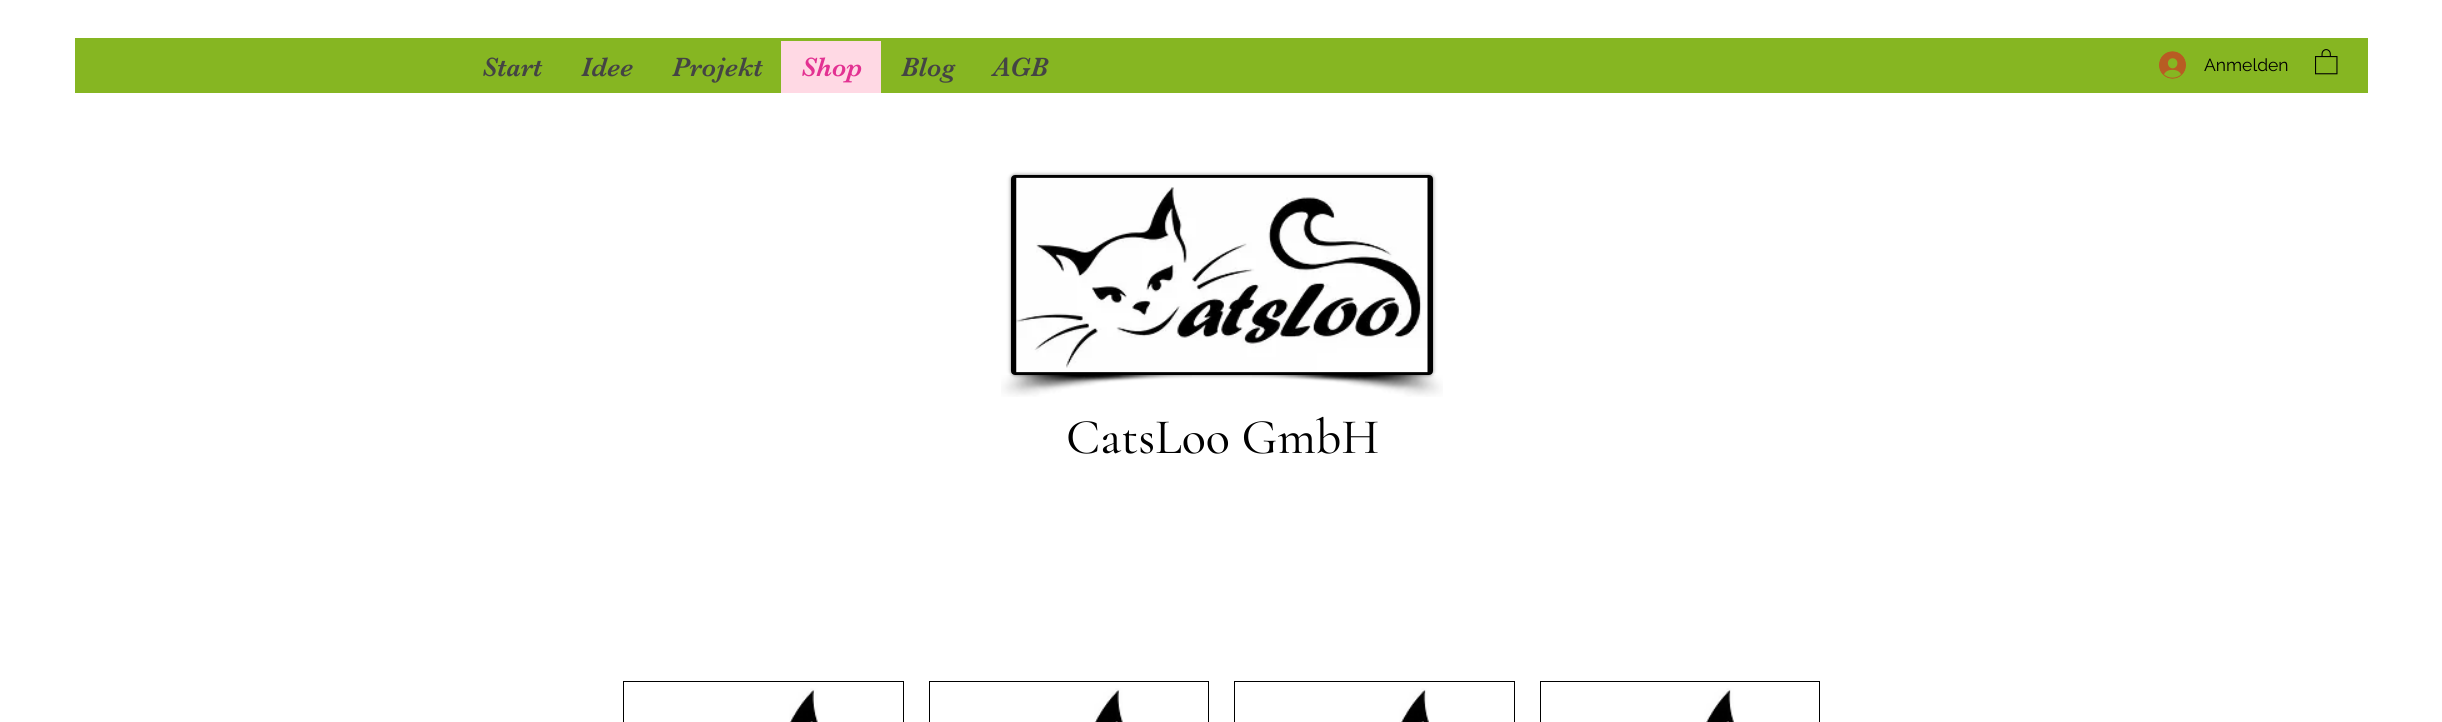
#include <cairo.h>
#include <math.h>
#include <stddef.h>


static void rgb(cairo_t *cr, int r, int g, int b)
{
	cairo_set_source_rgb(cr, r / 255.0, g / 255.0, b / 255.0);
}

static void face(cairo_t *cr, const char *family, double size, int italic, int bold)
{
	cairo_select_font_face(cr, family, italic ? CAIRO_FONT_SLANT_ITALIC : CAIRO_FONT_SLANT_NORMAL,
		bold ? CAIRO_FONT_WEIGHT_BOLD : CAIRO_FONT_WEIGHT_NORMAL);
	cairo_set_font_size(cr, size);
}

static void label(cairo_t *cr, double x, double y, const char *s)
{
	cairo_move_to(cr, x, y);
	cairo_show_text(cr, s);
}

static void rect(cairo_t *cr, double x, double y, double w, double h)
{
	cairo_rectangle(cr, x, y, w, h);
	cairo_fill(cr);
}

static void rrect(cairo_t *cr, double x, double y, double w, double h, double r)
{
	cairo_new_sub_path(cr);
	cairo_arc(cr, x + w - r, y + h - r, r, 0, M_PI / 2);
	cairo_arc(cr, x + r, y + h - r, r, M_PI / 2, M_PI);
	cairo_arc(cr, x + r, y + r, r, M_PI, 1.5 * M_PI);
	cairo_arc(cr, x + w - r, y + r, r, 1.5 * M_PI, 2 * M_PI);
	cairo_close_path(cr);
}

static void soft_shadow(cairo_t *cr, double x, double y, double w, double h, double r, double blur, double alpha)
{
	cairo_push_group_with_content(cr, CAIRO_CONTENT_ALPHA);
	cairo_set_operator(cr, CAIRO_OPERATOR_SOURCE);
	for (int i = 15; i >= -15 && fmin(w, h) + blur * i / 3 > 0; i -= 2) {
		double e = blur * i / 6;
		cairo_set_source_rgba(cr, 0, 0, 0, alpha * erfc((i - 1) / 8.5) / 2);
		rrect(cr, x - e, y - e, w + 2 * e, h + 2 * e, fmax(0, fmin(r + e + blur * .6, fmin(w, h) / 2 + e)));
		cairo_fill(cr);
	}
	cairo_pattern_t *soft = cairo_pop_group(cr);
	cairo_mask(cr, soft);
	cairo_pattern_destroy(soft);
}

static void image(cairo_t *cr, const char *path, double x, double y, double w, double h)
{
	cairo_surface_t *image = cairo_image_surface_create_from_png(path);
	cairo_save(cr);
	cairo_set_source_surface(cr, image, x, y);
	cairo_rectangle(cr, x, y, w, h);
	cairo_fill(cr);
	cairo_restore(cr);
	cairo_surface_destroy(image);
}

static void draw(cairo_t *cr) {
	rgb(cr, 255, 255, 255);
	cairo_paint(cr);
	rgb(cr, 134, 182, 34);
	rect(cr, 75, 38, 2293, 55);
	face(cr, "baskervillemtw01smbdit", 27.5, 0, 0);
	rgb(cr, 68, 68, 68);
	label(cr, 482, 76, "Start");
	label(cr, 581, 76, "Idee");
	label(cr, 672, 76, "Projekt");
	rgb(cr, 255, 217, 228);
	rect(cr, 781, 41, 100, 52);
	rgb(cr, 227, 50, 146);
	label(cr, 801, 76, "Shop");
	rgb(cr, 68, 68, 68);
	label(cr, 901, 76, "Blog");
	label(cr, 993, 76, "AGB");
	image(cr, "image0.png", 2159, 51, 27, 28);
	face(cr, "Raleway", 17.5, 0, 0);
	rgb(cr, 0, 0, 0);
	label(cr, 2204, 71, "Anmelden");
	image(cr, "image1.png", 2315, 49, 23, 26);
	rgb(cr, 0, 0, 0);
	soft_shadow(cr, 1011, 175, 422, 200, 4, 2, 0.5);
	rgb(cr, 0, 0, 0);
	rrect(cr, 1012.5, 176.5, 419, 197, 2.5);
	cairo_fill_preserve(cr);
	cairo_set_line_width(cr, 3);
	cairo_stroke(cr);
	image(cr, "image2.png", 1016, 177, 412, 196);
	image(cr, "image3.png", 1001, 375, 191, 22);
	image(cr, "image4.png", 1252, 375, 191, 22);
	face(cr, "Cormorant Garamond Medium", 50, 0, 0);
	label(cr, 1066, 453, "CatsLoo GmbH");
	cairo_rectangle(cr, 623.5, 681.5, 280, 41);
	cairo_set_line_width(cr, 1);
	cairo_stroke(cr);
	image(cr, "image5.png", 789, 688, 29, 34);
	cairo_rectangle(cr, 929.5, 681.5, 279, 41);
	cairo_stroke(cr);
	image(cr, "image5.png", 1094, 688, 29, 34);
	cairo_rectangle(cr, 1234.5, 681.5, 280, 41);
	cairo_stroke(cr);
	image(cr, "image6.png", 1399, 688, 30, 34);
	cairo_rectangle(cr, 1540.5, 681.5, 279, 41);
	cairo_stroke(cr);
	image(cr, "image7.png", 1704, 688, 30, 34);
}

int main(void) {
	cairo_surface_t *surface = cairo_image_surface_create(CAIRO_FORMAT_RGB24, 2442, 722);
	cairo_t *cr = cairo_create(surface);
	cairo_font_options_t *options = cairo_font_options_create();
	cairo_font_options_set_hint_metrics(options, CAIRO_HINT_METRICS_OFF);
	cairo_font_options_set_hint_style(options, CAIRO_HINT_STYLE_NONE);
	cairo_set_font_options(cr, options);
	cairo_set_miter_limit(cr, 4);
	draw(cr);
	cairo_surface_write_to_png(surface, "render.png");
	cairo_font_options_destroy(options);
	cairo_destroy(cr);
	cairo_surface_destroy(surface);
	return 0;
}
